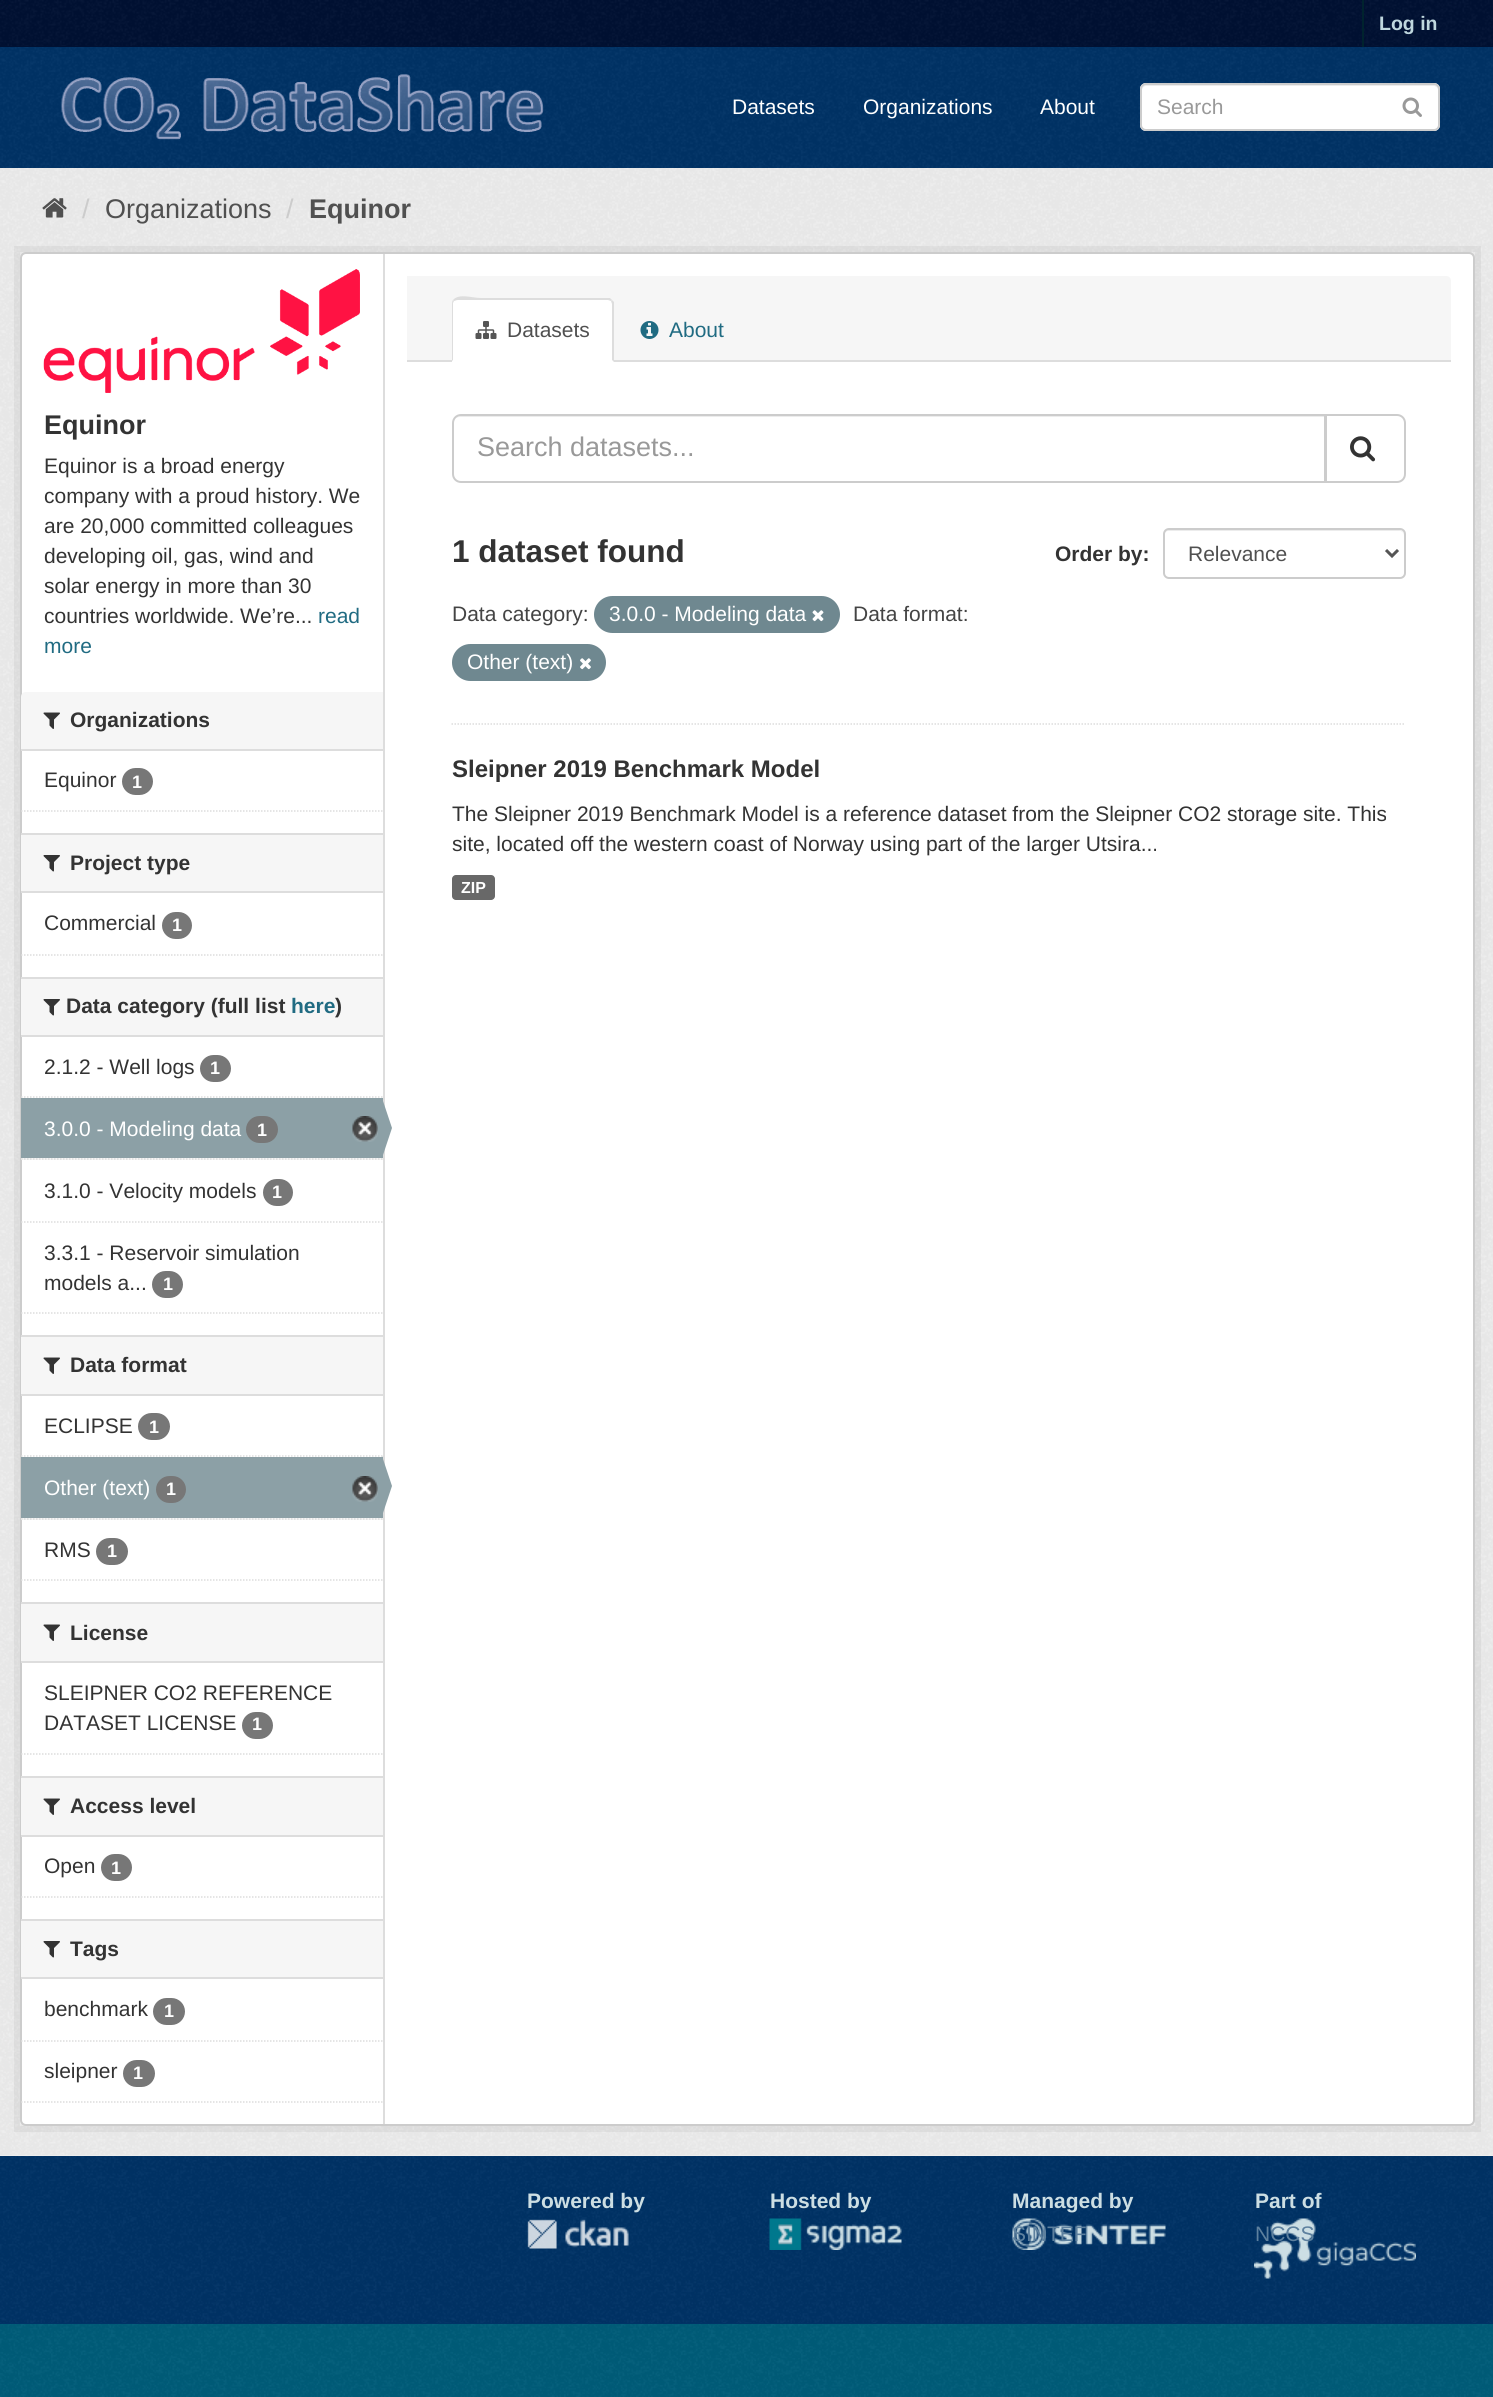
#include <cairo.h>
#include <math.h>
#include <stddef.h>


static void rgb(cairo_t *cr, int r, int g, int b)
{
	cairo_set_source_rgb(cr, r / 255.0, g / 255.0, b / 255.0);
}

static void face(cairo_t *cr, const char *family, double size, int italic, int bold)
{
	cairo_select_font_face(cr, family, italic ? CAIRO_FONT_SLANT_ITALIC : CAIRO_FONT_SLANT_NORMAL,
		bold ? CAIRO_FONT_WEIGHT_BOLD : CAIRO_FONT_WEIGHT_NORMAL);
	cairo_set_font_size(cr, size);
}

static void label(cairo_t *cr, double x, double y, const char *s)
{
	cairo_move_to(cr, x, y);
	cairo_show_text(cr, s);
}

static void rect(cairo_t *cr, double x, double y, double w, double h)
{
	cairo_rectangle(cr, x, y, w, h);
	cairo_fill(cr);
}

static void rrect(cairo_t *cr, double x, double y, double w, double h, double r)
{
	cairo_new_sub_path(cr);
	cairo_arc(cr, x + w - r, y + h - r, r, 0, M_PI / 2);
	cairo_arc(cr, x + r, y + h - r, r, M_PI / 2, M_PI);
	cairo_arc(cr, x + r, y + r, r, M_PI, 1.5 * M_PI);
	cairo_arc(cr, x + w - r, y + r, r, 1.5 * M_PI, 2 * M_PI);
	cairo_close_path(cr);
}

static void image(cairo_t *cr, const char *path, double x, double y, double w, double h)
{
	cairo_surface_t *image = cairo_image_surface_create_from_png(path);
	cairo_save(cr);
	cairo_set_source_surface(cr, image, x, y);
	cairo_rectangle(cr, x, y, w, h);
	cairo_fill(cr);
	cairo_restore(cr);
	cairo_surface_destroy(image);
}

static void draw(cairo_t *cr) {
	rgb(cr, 0, 93, 122);
	cairo_paint(cr);
	image(cr, "image0.png", 0, 2324, 1493, 73);
	rgb(cr, 0, 17, 51);
	rect(cr, 0, 0, 1493, 47);
	image(cr, "image1.png", 0, 0, 1493, 46);
	rgb(cr, 0, 35, 46);
	rect(cr, 1362, 0, 2, 47);
	face(cr, "Liberation Sans", 19.5, 0, 1);
	rgb(cr, 191, 215, 222);
	label(cr, 1379, 30, "Log in");
	rgb(cr, 0, 51, 102);
	rect(cr, 0, 47, 1493, 121);
	image(cr, "image2.png", 0, 47, 1493, 121);
	image(cr, "image3.png", 61, 74, 483, 66);
	face(cr, "Liberation Sans", 21, 0, 0);
	rgb(cr, 255, 255, 255);
	label(cr, 732, 114, "Datasets");
	label(cr, 863, 114, "Organizations");
	label(cr, 1040, 114, "About");
	rrect(cr, 1140, 83, 300, 48, 6);
	cairo_fill(cr);
	rgb(cr, 236, 236, 236);
	cairo_new_path(cr);
	cairo_move_to(cr, 1146, 86);
	cairo_line_to(cr, 1434, 86);
	cairo_curve_to(cr, 1436, 86, 1438, 88, 1438, 90);
	cairo_line_to(cr, 1438, 127);
	cairo_curve_to(cr, 1439, 126, 1439, 125, 1439, 124);
	cairo_line_to(cr, 1439, 89);
	cairo_curve_to(cr, 1439, 86, 1437, 84, 1434, 84);
	cairo_line_to(cr, 1147, 84);
	cairo_curve_to(cr, 1144, 84, 1142, 86, 1142, 89);
	cairo_line_to(cr, 1142, 90);
	cairo_curve_to(cr, 1142, 88, 1144, 86, 1146, 86);
	cairo_close_path(cr);
	cairo_fill(cr);
	rrect(cr, 1141, 84, 298, 46, 5);
	rgb(cr, 204, 204, 204);
	cairo_stroke(cr);
	rgb(cr, 153, 153, 153);
	label(cr, 1157, 114, "Search");
	image(cr, "image4.png", 1402, 97, 20, 20);
	rgb(cr, 238, 238, 238);
	rect(cr, 0, 168, 1493, 1988);
	image(cr, "image5.png", 0, 168, 1493, 1987);
	image(cr, "image6.png", 42, 198, 25, 20);
	face(cr, "Liberation Sans", 27, 0, 0);
	rgb(cr, 204, 204, 204);
	label(cr, 82, 218, "/");
	rgb(cr, 80, 80, 80);
	label(cr, 105, 218, "Organizations");
	rgb(cr, 204, 204, 204);
	label(cr, 286, 218, "/");
	face(cr, "Liberation Sans", 27, 0, 1);
	rgb(cr, 80, 80, 80);
	label(cr, 309, 218, "Equinor");
	cairo_rectangle(cr, 17, 249, 1461, 1880);
	cairo_set_source_rgba(cr, 0, 0, 0, 0.05);
	cairo_set_line_width(cr, 6);
	cairo_stroke(cr);
	rgb(cr, 255, 255, 255);
	rrect(cr, 21, 253, 1453, 1872, 5);
	cairo_fill_preserve(cr);
	rgb(cr, 204, 204, 204);
	cairo_set_line_width(cr, 2);
	cairo_stroke(cr);
	image(cr, "image7.png", 43, 269, 317, 124);
	rgb(cr, 51, 51, 51);
	label(cr, 44, 434, "Equinor");
	face(cr, "Liberation Sans", 21, 0, 0);
	label(cr, 44, 473, "Equinor is a broad energy");
	label(cr, 44, 503, "company with a proud history. We");
	label(cr, 44, 533, "are 20,000 committed colleagues");
	label(cr, 44, 563, "developing oil, gas, wind and");
	label(cr, 44, 593, "solar energy in more than 30");
	label(cr, 44, 623, "countries worldwide. We’re...");
	rgb(cr, 32, 107, 130);
	label(cr, 318, 623, "read");
	label(cr, 44, 653, "more");
	rgb(cr, 246, 246, 246);
	cairo_new_path(cr);
	cairo_move_to(cr, 26, 692);
	cairo_line_to(cr, 383, 692);
	cairo_line_to(cr, 383, 750);
	cairo_line_to(cr, 21, 750);
	cairo_line_to(cr, 21, 697);
	cairo_curve_to(cr, 21, 694, 23, 692, 26, 692);
	cairo_close_path(cr);
	cairo_fill(cr);
	rgb(cr, 221, 221, 221);
	rect(cr, 21, 749, 362, 2);
	image(cr, "image8.png", 43, 712, 17, 17);
	face(cr, "Liberation Sans", 21, 0, 1);
	rgb(cr, 51, 51, 51);
	label(cr, 70, 727, "Organizations");
	face(cr, "Liberation Sans", 21, 0, 0);
	label(cr, 44, 787, "Equinor");
	rgb(cr, 119, 119, 119);
	rrect(cr, 122, 768, 31, 27, 13.5);
	cairo_fill(cr);
	face(cr, "Liberation Sans", 18, 0, 1);
	rgb(cr, 255, 255, 255);
	label(cr, 132, 788, "1");
	cairo_new_path(cr);
	cairo_move_to(cr, 21, 811);
	cairo_line_to(cr, 382.5, 811);
	rgb(cr, 221, 221, 221);
	cairo_set_line_width(cr, 1.5);
	cairo_set_dash(cr, (double[]){1.5, 1.5}, 2, 0);
	cairo_stroke(cr);
	rgb(cr, 246, 246, 246);
	rect(cr, 21, 835, 362, 56);
	rgb(cr, 221, 221, 221);
	rect(cr, 21, 833, 362, 2);
	rect(cr, 21, 891, 362, 2);
	image(cr, "image9.png", 43, 855, 17, 17);
	face(cr, "Liberation Sans", 21, 0, 1);
	rgb(cr, 51, 51, 51);
	label(cr, 70, 870, "Project type");
	face(cr, "Liberation Sans", 21, 0, 0);
	label(cr, 44, 930, "Commercial");
	rgb(cr, 119, 119, 119);
	rrect(cr, 162, 912, 30, 27, 13.5);
	cairo_fill(cr);
	face(cr, "Liberation Sans", 18, 0, 1);
	rgb(cr, 255, 255, 255);
	label(cr, 172, 931, "1");
	cairo_new_path(cr);
	cairo_move_to(cr, 21, 955);
	cairo_line_to(cr, 382.5, 955);
	rgb(cr, 221, 221, 221);
	cairo_stroke(cr);
	rgb(cr, 246, 246, 246);
	rect(cr, 21, 979, 362, 56);
	rgb(cr, 221, 221, 221);
	rect(cr, 21, 977, 362, 2);
	rect(cr, 21, 1035, 362, 2);
	image(cr, "image9.png", 43, 999, 17, 17);
	face(cr, "Liberation Sans", 21, 0, 1);
	rgb(cr, 51, 51, 51);
	label(cr, 66, 1013, "Data category (full list");
	rgb(cr, 32, 107, 130);
	label(cr, 291, 1013, "here");
	rgb(cr, 51, 51, 51);
	label(cr, 335, 1013, ")");
	cairo_new_path(cr);
	cairo_move_to(cr, 21, 1097);
	cairo_line_to(cr, 382.5, 1097);
	rgb(cr, 221, 221, 221);
	cairo_stroke(cr);
	face(cr, "Liberation Sans", 21, 0, 0);
	rgb(cr, 51, 51, 51);
	label(cr, 44, 1074, "2.1.2 - Well logs");
	rgb(cr, 119, 119, 119);
	rrect(cr, 200, 1055, 31, 27, 13.5);
	cairo_fill(cr);
	face(cr, "Liberation Sans", 18, 0, 1);
	rgb(cr, 255, 255, 255);
	label(cr, 210, 1074, "1");
	rgb(cr, 246, 246, 246);
	rect(cr, 21, 1158, 362, 2);
	cairo_new_path(cr);
	cairo_move_to(cr, 21, 1159);
	cairo_line_to(cr, 382.5, 1159);
	rgb(cr, 221, 221, 221);
	cairo_stroke(cr);
	rgb(cr, 140, 160, 166);
	rect(cr, 21, 1098, 362, 60);
	face(cr, "Liberation Sans", 21, 0, 0);
	rgb(cr, 255, 255, 255);
	label(cr, 44, 1136, "3.0.0 - Modeling data");
	rgb(cr, 119, 119, 119);
	rrect(cr, 246, 1116, 32, 27, 13.5);
	cairo_fill(cr);
	face(cr, "Liberation Sans", 18, 0, 1);
	rgb(cr, 255, 255, 255);
	label(cr, 257, 1136, "1");
	image(cr, "image10.png", 352, 1116, 26, 26);
	rgb(cr, 221, 221, 221);
	rect(cr, 383, 254, 2, 1870);
	rgb(cr, 140, 160, 166);
	cairo_new_path(cr);
	cairo_move_to(cr, 382, 1158);
	cairo_line_to(cr, 382, 1098);
	cairo_line_to(cr, 392, 1128);
	cairo_close_path(cr);
	cairo_fill(cr);
	cairo_new_path(cr);
	cairo_move_to(cr, 21, 1222);
	cairo_line_to(cr, 382.5, 1222);
	rgb(cr, 221, 221, 221);
	cairo_stroke(cr);
	face(cr, "Liberation Sans", 21, 0, 0);
	rgb(cr, 51, 51, 51);
	label(cr, 44, 1198, "3.1.0 - Velocity models");
	rgb(cr, 119, 119, 119);
	rrect(cr, 263, 1179, 30, 27, 13.5);
	cairo_fill(cr);
	face(cr, "Liberation Sans", 18, 0, 1);
	rgb(cr, 255, 255, 255);
	label(cr, 272, 1198, "1");
	face(cr, "Liberation Sans", 21, 0, 0);
	rgb(cr, 51, 51, 51);
	label(cr, 44, 1260, "3.3.1 - Reservoir simulation");
	label(cr, 44, 1290, "models a...");
	rgb(cr, 119, 119, 119);
	rrect(cr, 152, 1271, 31, 27, 13.5);
	cairo_fill(cr);
	face(cr, "Liberation Sans", 18, 0, 1);
	rgb(cr, 255, 255, 255);
	label(cr, 163, 1290, "1");
	cairo_new_path(cr);
	cairo_move_to(cr, 21, 1313);
	cairo_line_to(cr, 382.5, 1313);
	rgb(cr, 221, 221, 221);
	cairo_stroke(cr);
	rgb(cr, 246, 246, 246);
	rect(cr, 21, 1337, 362, 57);
	rgb(cr, 221, 221, 221);
	rect(cr, 21, 1335, 362, 2);
	rect(cr, 21, 1394, 362, 2);
	image(cr, "image8.png", 43, 1357, 17, 17);
	face(cr, "Liberation Sans", 21, 0, 1);
	rgb(cr, 51, 51, 51);
	label(cr, 70, 1372, "Data format");
	cairo_new_path(cr);
	cairo_move_to(cr, 21, 1456);
	cairo_line_to(cr, 382.5, 1456);
	rgb(cr, 221, 221, 221);
	cairo_stroke(cr);
	face(cr, "Liberation Sans", 21, 0, 0);
	rgb(cr, 51, 51, 51);
	label(cr, 44, 1433, "ECLIPSE");
	rgb(cr, 119, 119, 119);
	rrect(cr, 138, 1413, 32, 27, 13.5);
	cairo_fill(cr);
	face(cr, "Liberation Sans", 18, 0, 1);
	rgb(cr, 255, 255, 255);
	label(cr, 149, 1433, "1");
	rgb(cr, 246, 246, 246);
	rect(cr, 21, 1518, 362, 2);
	cairo_new_path(cr);
	cairo_move_to(cr, 21, 1519);
	cairo_line_to(cr, 382.5, 1519);
	rgb(cr, 221, 221, 221);
	cairo_stroke(cr);
	rgb(cr, 140, 160, 166);
	rect(cr, 21, 1457, 362, 61);
	face(cr, "Liberation Sans", 21, 0, 0);
	rgb(cr, 255, 255, 255);
	label(cr, 44, 1495, "Other (text)");
	rgb(cr, 119, 119, 119);
	rrect(cr, 156, 1476, 30, 27, 13.5);
	cairo_fill(cr);
	face(cr, "Liberation Sans", 18, 0, 1);
	rgb(cr, 255, 255, 255);
	label(cr, 166, 1495, "1");
	image(cr, "image10.png", 352, 1476, 26, 26);
	rgb(cr, 140, 160, 166);
	cairo_new_path(cr);
	cairo_move_to(cr, 382, 1516);
	cairo_line_to(cr, 382, 1456);
	cairo_line_to(cr, 392, 1486);
	cairo_close_path(cr);
	cairo_fill(cr);
	face(cr, "Liberation Sans", 21, 0, 0);
	rgb(cr, 51, 51, 51);
	label(cr, 44, 1557, "RMS");
	rgb(cr, 119, 119, 119);
	rrect(cr, 96, 1538, 32, 27, 13.5);
	cairo_fill(cr);
	face(cr, "Liberation Sans", 18, 0, 1);
	rgb(cr, 255, 255, 255);
	label(cr, 107, 1557, "1");
	cairo_new_path(cr);
	cairo_move_to(cr, 21, 1580);
	cairo_line_to(cr, 382.5, 1580);
	rgb(cr, 221, 221, 221);
	cairo_stroke(cr);
	rgb(cr, 246, 246, 246);
	rect(cr, 21, 1604, 362, 57);
	rgb(cr, 221, 221, 221);
	rect(cr, 21, 1602, 362, 2);
	rect(cr, 21, 1661, 362, 2);
	image(cr, "image8.png", 43, 1624, 17, 17);
	face(cr, "Liberation Sans", 21, 0, 1);
	rgb(cr, 51, 51, 51);
	label(cr, 70, 1640, "License");
	face(cr, "Liberation Sans", 21, 0, 0);
	label(cr, 44, 1700, "SLEIPNER CO2 REFERENCE");
	label(cr, 44, 1730, "DATASET LICENSE");
	rgb(cr, 119, 119, 119);
	rrect(cr, 242, 1712, 31, 27, 13.5);
	cairo_fill(cr);
	face(cr, "Liberation Sans", 18, 0, 1);
	rgb(cr, 255, 255, 255);
	label(cr, 252, 1730, "1");
	cairo_new_path(cr);
	cairo_move_to(cr, 21, 1754);
	cairo_line_to(cr, 382.5, 1754);
	rgb(cr, 221, 221, 221);
	cairo_stroke(cr);
	rgb(cr, 246, 246, 246);
	rect(cr, 21, 1778, 362, 57);
	rgb(cr, 221, 221, 221);
	rect(cr, 21, 1776, 362, 2);
	rect(cr, 21, 1835, 362, 2);
	image(cr, "image8.png", 43, 1798, 17, 17);
	face(cr, "Liberation Sans", 21, 0, 1);
	rgb(cr, 51, 51, 51);
	label(cr, 70, 1813, "Access level");
	face(cr, "Liberation Sans", 21, 0, 0);
	label(cr, 44, 1873, "Open");
	rgb(cr, 119, 119, 119);
	rrect(cr, 101, 1854, 31, 27, 13.5);
	cairo_fill(cr);
	face(cr, "Liberation Sans", 18, 0, 1);
	rgb(cr, 255, 255, 255);
	label(cr, 111, 1874, "1");
	cairo_new_path(cr);
	cairo_move_to(cr, 21, 1897);
	cairo_line_to(cr, 382.5, 1897);
	rgb(cr, 221, 221, 221);
	cairo_stroke(cr);
	rgb(cr, 246, 246, 246);
	rect(cr, 21, 1921, 362, 56);
	rgb(cr, 221, 221, 221);
	rect(cr, 21, 1919, 362, 2);
	rect(cr, 21, 1977, 362, 2);
	image(cr, "image9.png", 43, 1941, 17, 17);
	face(cr, "Liberation Sans", 21, 0, 1);
	rgb(cr, 51, 51, 51);
	label(cr, 70, 1956, "Tags");
	cairo_new_path(cr);
	cairo_move_to(cr, 21, 2041);
	cairo_line_to(cr, 382.5, 2041);
	rgb(cr, 221, 221, 221);
	cairo_stroke(cr);
	face(cr, "Liberation Sans", 21, 0, 0);
	rgb(cr, 51, 51, 51);
	label(cr, 44, 2016, "benchmark");
	rgb(cr, 119, 119, 119);
	rrect(cr, 153, 1998, 32, 27, 13.5);
	cairo_fill(cr);
	face(cr, "Liberation Sans", 18, 0, 1);
	rgb(cr, 255, 255, 255);
	label(cr, 164, 2017, "1");
	face(cr, "Liberation Sans", 21, 0, 0);
	rgb(cr, 51, 51, 51);
	label(cr, 44, 2078, "sleipner");
	rgb(cr, 119, 119, 119);
	rrect(cr, 123, 2060, 32, 27, 13.5);
	cairo_fill(cr);
	face(cr, "Liberation Sans", 18, 0, 1);
	rgb(cr, 255, 255, 255);
	label(cr, 133, 2079, "1");
	cairo_new_path(cr);
	cairo_move_to(cr, 21, 2102);
	cairo_line_to(cr, 382.5, 2102);
	rgb(cr, 221, 221, 221);
	cairo_stroke(cr);
	rgb(cr, 246, 246, 246);
	cairo_new_path(cr);
	cairo_move_to(cr, 407, 276);
	cairo_line_to(cr, 1446, 276);
	cairo_curve_to(cr, 1449, 276, 1451, 278, 1451, 281);
	cairo_line_to(cr, 1451, 362);
	cairo_line_to(cr, 407, 362);
	cairo_close_path(cr);
	cairo_fill(cr);
	rgb(cr, 221, 221, 221);
	rect(cr, 407, 360, 1044, 2);
	rgb(cr, 255, 255, 255);
	cairo_new_path(cr);
	cairo_move_to(cr, 458, 299);
	cairo_line_to(cr, 608, 299);
	cairo_curve_to(cr, 611.5, 299, 614, 301.5, 614, 305);
	cairo_line_to(cr, 614, 362);
	cairo_line_to(cr, 452, 362);
	cairo_line_to(cr, 452, 305);
	cairo_curve_to(cr, 452, 301.5, 454.5, 299, 458, 299);
	cairo_close_path(cr);
	cairo_fill(cr);
	rgb(cr, 221, 221, 221);
	cairo_new_path(cr);
	cairo_move_to(cr, 458, 300);
	cairo_curve_to(cr, 456, 300, 455, 301, 454, 301);
	cairo_line_to(cr, 453, 300);
	cairo_curve_to(cr, 459, 293, 472, 298, 481, 298);
	cairo_line_to(cr, 610, 298);
	cairo_line_to(cr, 612, 300);
	cairo_line_to(cr, 611, 301);
	cairo_line_to(cr, 608, 300);
	cairo_close_path(cr);
	cairo_fill(cr);
	cairo_new_path(cr);
	cairo_move_to(cr, 612, 300);
	cairo_line_to(cr, 614, 302);
	cairo_line_to(cr, 614, 362);
	cairo_line_to(cr, 612, 360);
	cairo_line_to(cr, 612, 304);
	cairo_line_to(cr, 611, 301);
	cairo_close_path(cr);
	cairo_fill(cr);
	cairo_new_path(cr);
	cairo_move_to(cr, 452, 361);
	cairo_line_to(cr, 452, 304);
	cairo_curve_to(cr, 452, 303, 452, 301, 453, 300);
	cairo_line_to(cr, 454, 301);
	cairo_line_to(cr, 453, 303);
	cairo_line_to(cr, 453, 360);
	cairo_close_path(cr);
	cairo_fill(cr);
	image(cr, "image11.png", 475, 321, 22, 18);
	face(cr, "Liberation Sans", 21, 0, 0);
	rgb(cr, 80, 80, 80);
	label(cr, 507, 337, "Datasets");
	image(cr, "image12.png", 640, 321, 19, 18);
	rgb(cr, 32, 107, 130);
	label(cr, 669, 337, "About");
	cairo_new_path(cr);
	cairo_move_to(cr, 451.5, 724);
	cairo_line_to(cr, 1405.5, 724);
	rgb(cr, 221, 221, 221);
	cairo_stroke(cr);
	rgb(cr, 236, 236, 236);
	cairo_new_path(cr);
	cairo_move_to(cr, 460, 417);
	cairo_line_to(cr, 1324, 417);
	cairo_line_to(cr, 1324, 482);
	cairo_line_to(cr, 1325, 482);
	cairo_line_to(cr, 1325, 416);
	cairo_line_to(cr, 461, 416);
	cairo_curve_to(cr, 457, 416, 453, 420, 453, 424);
	cairo_curve_to(cr, 453, 420, 456, 417, 460, 417);
	cairo_close_path(cr);
	cairo_fill(cr);
	cairo_new_path(cr);
	cairo_move_to(cr, 461, 415);
	cairo_line_to(cr, 1325, 415);
	cairo_line_to(cr, 1325, 482);
	cairo_line_to(cr, 461, 482);
	cairo_curve_to(cr, 456.5, 482, 453, 478.5, 453, 474);
	cairo_line_to(cr, 453, 423);
	cairo_curve_to(cr, 453, 418.5, 456.5, 415, 461, 415);
	cairo_close_path(cr);
	rgb(cr, 204, 204, 204);
	cairo_set_line_width(cr, 2);
	cairo_set_dash(cr, NULL, 0, 0);
	cairo_stroke(cr);
	face(cr, "Liberation Sans", 27, 0, 0);
	rgb(cr, 153, 153, 153);
	label(cr, 477, 456, "Search datasets...");
	rgb(cr, 255, 255, 255);
	cairo_new_path(cr);
	cairo_move_to(cr, 1326, 415);
	cairo_line_to(cr, 1397, 415);
	cairo_curve_to(cr, 1401.5, 415, 1405, 418.5, 1405, 423);
	cairo_line_to(cr, 1405, 474);
	cairo_curve_to(cr, 1405, 478.5, 1401.5, 482, 1397, 482);
	cairo_line_to(cr, 1326, 482);
	cairo_close_path(cr);
	cairo_fill_preserve(cr);
	rgb(cr, 204, 204, 204);
	cairo_stroke(cr);
	image(cr, "image13.png", 1350, 436, 26, 26);
	face(cr, "Liberation Sans", 31.5, 0, 1);
	rgb(cr, 51, 51, 51);
	label(cr, 452, 562, "1 dataset found");
	face(cr, "Liberation Sans", 21, 0, 1);
	label(cr, 1055, 561, "Order by:");
	rgb(cr, 236, 236, 236);
	cairo_new_path(cr);
	cairo_move_to(cr, 1168, 531);
	cairo_line_to(cr, 1400, 531);
	cairo_curve_to(cr, 1402, 531, 1404, 533, 1404, 536);
	cairo_line_to(cr, 1404, 535);
	cairo_curve_to(cr, 1404, 532, 1402, 530, 1399, 530);
	cairo_line_to(cr, 1169, 530);
	cairo_curve_to(cr, 1166, 530, 1164, 532, 1164, 535);
	cairo_line_to(cr, 1164, 536);
	cairo_curve_to(cr, 1164, 533, 1166, 531, 1168, 531);
	cairo_close_path(cr);
	cairo_fill(cr);
	rrect(cr, 1164, 529, 241, 49, 5);
	rgb(cr, 204, 204, 204);
	cairo_stroke(cr);
	cairo_new_path(cr);
	cairo_move_to(cr, 1386, 550);
	cairo_line_to(cr, 1392, 556);
	cairo_line_to(cr, 1398, 550);
	rgb(cr, 85, 85, 85);
	cairo_set_line_width(cr, 3);
	cairo_stroke(cr);
	face(cr, "Liberation Sans", 21, 0, 0);
	rgb(cr, 80, 80, 80);
	label(cr, 1188, 561, "Relevance");
	rgb(cr, 68, 68, 68);
	label(cr, 452, 621, "Data category:");
	rgb(cr, 111, 136, 144);
	rrect(cr, 594, 596, 246, 37, 18.5);
	cairo_fill(cr);
	rgb(cr, 255, 255, 255);
	label(cr, 609, 621, "3.0.0 - Modeling data");
	image(cr, "image14.png", 812, 610, 12, 12);
	rgb(cr, 68, 68, 68);
	label(cr, 853, 621, "Data format:");
	rgb(cr, 111, 136, 144);
	rrect(cr, 452, 644, 154, 37, 18.5);
	cairo_fill(cr);
	rgb(cr, 255, 255, 255);
	label(cr, 467, 669, "Other (text)");
	image(cr, "image15.png", 580, 658, 11, 12);
	face(cr, "Liberation Sans", 24, 0, 1);
	rgb(cr, 51, 51, 51);
	label(cr, 452, 777, "Sleipner 2019 Benchmark Model");
	face(cr, "Liberation Sans", 21, 0, 0);
	label(cr, 452, 821, "The Sleipner 2019 Benchmark Model is a reference dataset from the Sleipner CO2 storage site. This");
	label(cr, 452, 851, "site, located off the western coast of Norway using part of the larger Utsira...");
	rgb(cr, 104, 104, 104);
	rrect(cr, 452, 875, 43, 25, 4);
	cairo_fill(cr);
	face(cr, "Liberation Sans", 16, 0, 1);
	rgb(cr, 255, 255, 255);
	label(cr, 461, 893, "ZIP");
	rgb(cr, 0, 51, 102);
	rect(cr, 0, 2156, 1493, 168);
	image(cr, "image16.png", 0, 2156, 1493, 167);
	face(cr, "Liberation Sans", 21, 0, 1);
	rgb(cr, 204, 222, 227);
	label(cr, 527, 2208, "Powered by");
	image(cr, "image17.png", 527, 2219, 102, 30);
	label(cr, 770, 2208, "Hosted by");
	image(cr, "image18.png", 769, 2218, 133, 32);
	label(cr, 1012, 2208, "Managed by");
	image(cr, "image19.png", 1012, 2218, 154, 32);
	face(cr, "Liberation Sans", 21, 0, 0);
	rgb(cr, 93, 128, 158);
	label(cr, 1012, 2241, "SINTEF");
	face(cr, "Liberation Sans", 21, 0, 1);
	rgb(cr, 204, 222, 227);
	label(cr, 1255, 2208, "Part of");
	image(cr, "image20.png", 1254, 2218, 162, 61);
	face(cr, "Liberation Sans", 21, 0, 0);
	rgb(cr, 93, 128, 158);
	label(cr, 1255, 2241, "NCCS");
}

int main(void) {
	cairo_surface_t *surface = cairo_image_surface_create(CAIRO_FORMAT_RGB24, 1493, 2397);
	cairo_t *cr = cairo_create(surface);
	cairo_font_options_t *options = cairo_font_options_create();
	cairo_font_options_set_hint_metrics(options, CAIRO_HINT_METRICS_OFF);
	cairo_font_options_set_hint_style(options, CAIRO_HINT_STYLE_NONE);
	cairo_set_font_options(cr, options);
	cairo_set_miter_limit(cr, 4);
	draw(cr);
	cairo_surface_write_to_png(surface, "render.png");
	cairo_font_options_destroy(options);
	cairo_destroy(cr);
	cairo_surface_destroy(surface);
	return 0;
}
